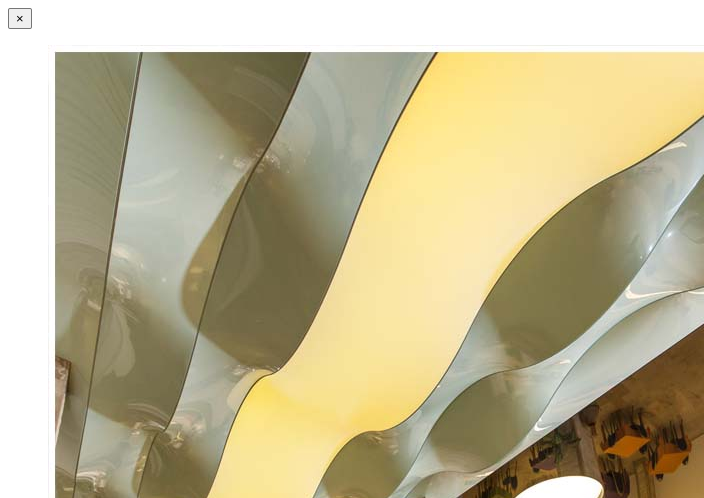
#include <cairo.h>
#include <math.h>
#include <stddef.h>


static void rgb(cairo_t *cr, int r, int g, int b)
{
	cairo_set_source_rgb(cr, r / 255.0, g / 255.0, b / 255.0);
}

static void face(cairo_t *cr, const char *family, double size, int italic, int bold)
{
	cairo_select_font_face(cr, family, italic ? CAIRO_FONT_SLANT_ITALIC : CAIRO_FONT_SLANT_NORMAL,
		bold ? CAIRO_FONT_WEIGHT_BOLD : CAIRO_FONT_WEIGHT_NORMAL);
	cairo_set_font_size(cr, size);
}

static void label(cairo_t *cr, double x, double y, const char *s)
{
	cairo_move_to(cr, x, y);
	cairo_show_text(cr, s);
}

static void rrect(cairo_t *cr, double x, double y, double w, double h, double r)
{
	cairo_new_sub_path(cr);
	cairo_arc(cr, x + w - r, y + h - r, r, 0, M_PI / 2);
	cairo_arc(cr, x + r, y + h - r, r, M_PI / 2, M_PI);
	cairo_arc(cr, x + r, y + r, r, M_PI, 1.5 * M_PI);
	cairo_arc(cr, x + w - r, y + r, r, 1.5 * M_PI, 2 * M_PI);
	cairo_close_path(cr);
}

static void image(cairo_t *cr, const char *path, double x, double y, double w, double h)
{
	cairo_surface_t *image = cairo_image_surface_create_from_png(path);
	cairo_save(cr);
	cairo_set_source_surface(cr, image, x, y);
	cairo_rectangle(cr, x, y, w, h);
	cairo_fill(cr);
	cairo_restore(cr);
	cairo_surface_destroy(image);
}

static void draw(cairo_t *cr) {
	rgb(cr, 255, 255, 255);
	cairo_paint(cr);
	rgb(cr, 239, 239, 239);
	rrect(cr, 8.5, 8.5, 23, 20, 1.5);
	cairo_fill_preserve(cr);
	rgb(cr, 118, 118, 118);
	cairo_set_line_width(cr, 1);
	cairo_stroke(cr);
	face(cr, "Liberation Sans", 13, 0, 0);
	rgb(cr, 0, 0, 0);
	label(cr, 16, 23, "×");
	image(cr, "image0.png", 48, 45, 656, 453);
}

int main(void) {
	cairo_surface_t *surface = cairo_image_surface_create(CAIRO_FORMAT_RGB24, 704, 498);
	cairo_t *cr = cairo_create(surface);
	cairo_font_options_t *options = cairo_font_options_create();
	cairo_font_options_set_hint_metrics(options, CAIRO_HINT_METRICS_OFF);
	cairo_font_options_set_hint_style(options, CAIRO_HINT_STYLE_NONE);
	cairo_set_font_options(cr, options);
	cairo_set_miter_limit(cr, 4);
	draw(cr);
	cairo_surface_write_to_png(surface, "render.png");
	cairo_font_options_destroy(options);
	cairo_destroy(cr);
	cairo_surface_destroy(surface);
	return 0;
}
